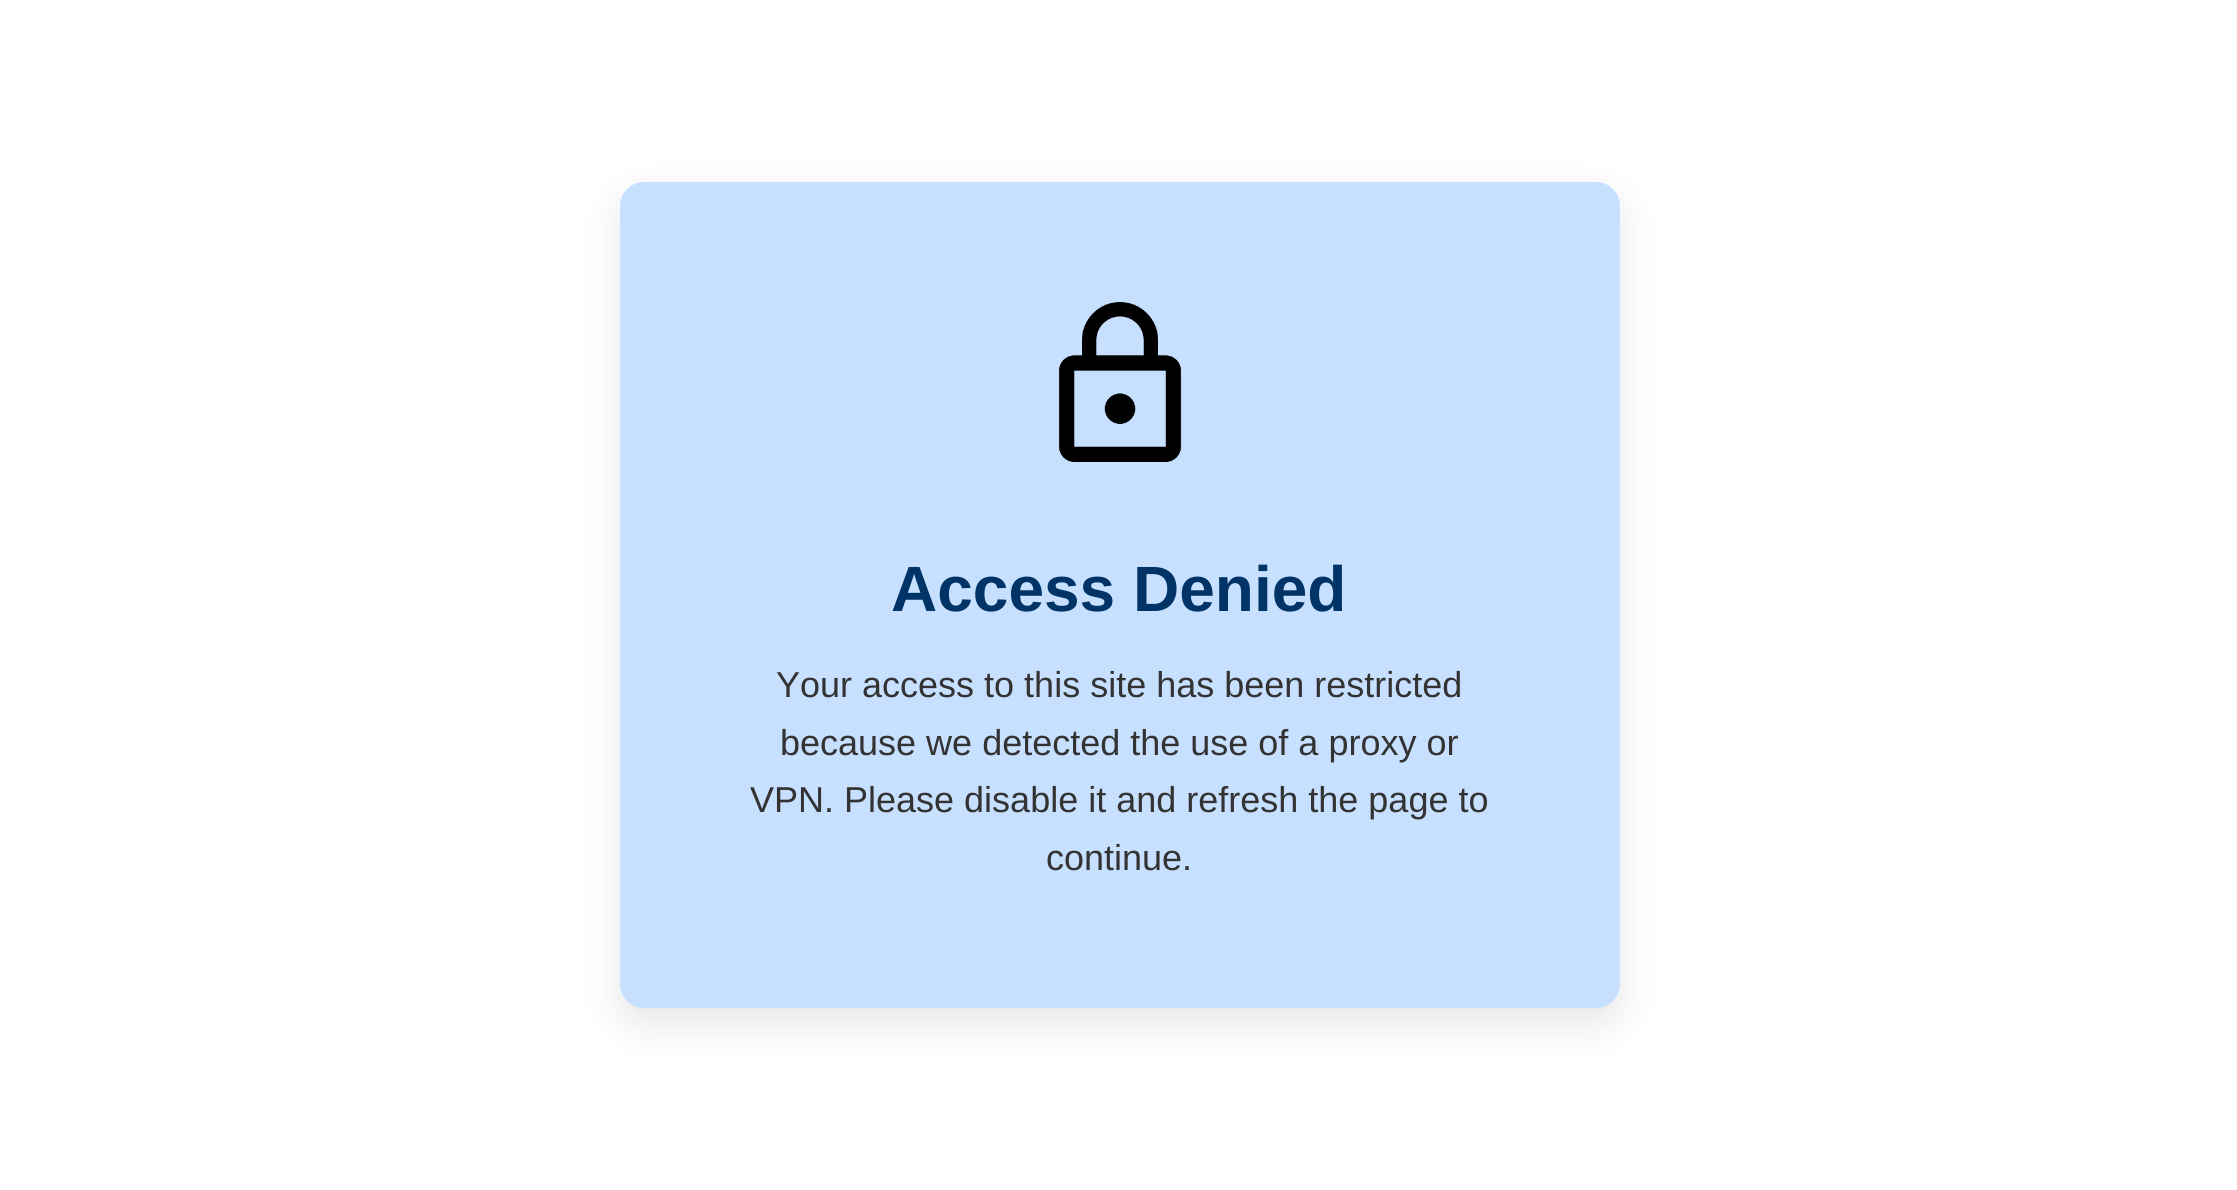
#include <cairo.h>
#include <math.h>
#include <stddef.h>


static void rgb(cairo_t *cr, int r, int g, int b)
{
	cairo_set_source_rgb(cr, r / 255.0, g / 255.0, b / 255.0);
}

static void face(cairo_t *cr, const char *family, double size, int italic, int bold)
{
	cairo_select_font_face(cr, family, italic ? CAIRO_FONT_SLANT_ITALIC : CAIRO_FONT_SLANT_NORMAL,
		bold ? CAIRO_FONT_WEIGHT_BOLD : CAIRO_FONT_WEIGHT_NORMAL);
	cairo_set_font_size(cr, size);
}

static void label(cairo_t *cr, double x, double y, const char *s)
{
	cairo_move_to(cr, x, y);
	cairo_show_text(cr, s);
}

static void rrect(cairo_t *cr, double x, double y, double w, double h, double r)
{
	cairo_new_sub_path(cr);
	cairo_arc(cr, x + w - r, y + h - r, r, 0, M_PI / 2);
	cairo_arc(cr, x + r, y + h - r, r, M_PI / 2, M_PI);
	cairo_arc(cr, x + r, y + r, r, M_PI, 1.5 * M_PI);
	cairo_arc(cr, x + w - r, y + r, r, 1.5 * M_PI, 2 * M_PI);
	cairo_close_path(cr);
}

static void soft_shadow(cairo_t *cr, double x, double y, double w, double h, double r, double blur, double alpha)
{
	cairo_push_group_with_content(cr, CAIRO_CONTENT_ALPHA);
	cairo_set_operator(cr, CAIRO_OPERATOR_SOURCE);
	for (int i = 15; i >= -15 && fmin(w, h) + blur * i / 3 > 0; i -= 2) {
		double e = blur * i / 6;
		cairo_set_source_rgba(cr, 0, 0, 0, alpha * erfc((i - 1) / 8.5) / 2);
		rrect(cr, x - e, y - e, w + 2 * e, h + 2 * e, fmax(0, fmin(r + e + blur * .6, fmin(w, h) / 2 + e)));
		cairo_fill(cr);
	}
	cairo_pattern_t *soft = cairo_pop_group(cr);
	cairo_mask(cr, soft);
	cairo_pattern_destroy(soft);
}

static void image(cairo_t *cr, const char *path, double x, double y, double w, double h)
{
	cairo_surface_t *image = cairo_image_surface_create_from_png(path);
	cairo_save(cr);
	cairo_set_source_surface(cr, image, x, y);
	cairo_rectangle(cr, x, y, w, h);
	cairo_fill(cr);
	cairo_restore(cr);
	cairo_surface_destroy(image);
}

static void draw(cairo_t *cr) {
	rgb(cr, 255, 255, 255);
	cairo_paint(cr);
	rgb(cr, 0, 0, 0);
	soft_shadow(cr, 620, 198, 1000, 826, 24, 20, 0.1);
	rgb(cr, 200, 224, 255);
	rrect(cr, 620, 182, 1000, 826, 24);
	cairo_fill(cr);
	image(cr, "image0.png", 1058, 302, 124, 160);
	face(cr, "Liberation Sans", 64, 0, 1);
	rgb(cr, 0, 51, 102);
	label(cr, 891, 611, "Access Denied");
	face(cr, "Liberation Sans", 36, 0, 0);
	rgb(cr, 51, 51, 51);
	label(cr, 776, 697, "Your access to this site has been restricted");
	label(cr, 780, 755, "because we detected the use of a proxy or");
	label(cr, 750, 812, "VPN. Please disable it and refresh the page to");
	label(cr, 1046, 870, "continue.");
}

int main(void) {
	cairo_surface_t *surface = cairo_image_surface_create(CAIRO_FORMAT_RGB24, 2237, 1190);
	cairo_t *cr = cairo_create(surface);
	cairo_font_options_t *options = cairo_font_options_create();
	cairo_font_options_set_hint_metrics(options, CAIRO_HINT_METRICS_OFF);
	cairo_font_options_set_hint_style(options, CAIRO_HINT_STYLE_NONE);
	cairo_set_font_options(cr, options);
	cairo_set_miter_limit(cr, 4);
	draw(cr);
	cairo_surface_write_to_png(surface, "render.png");
	cairo_font_options_destroy(options);
	cairo_destroy(cr);
	cairo_surface_destroy(surface);
	return 0;
}
